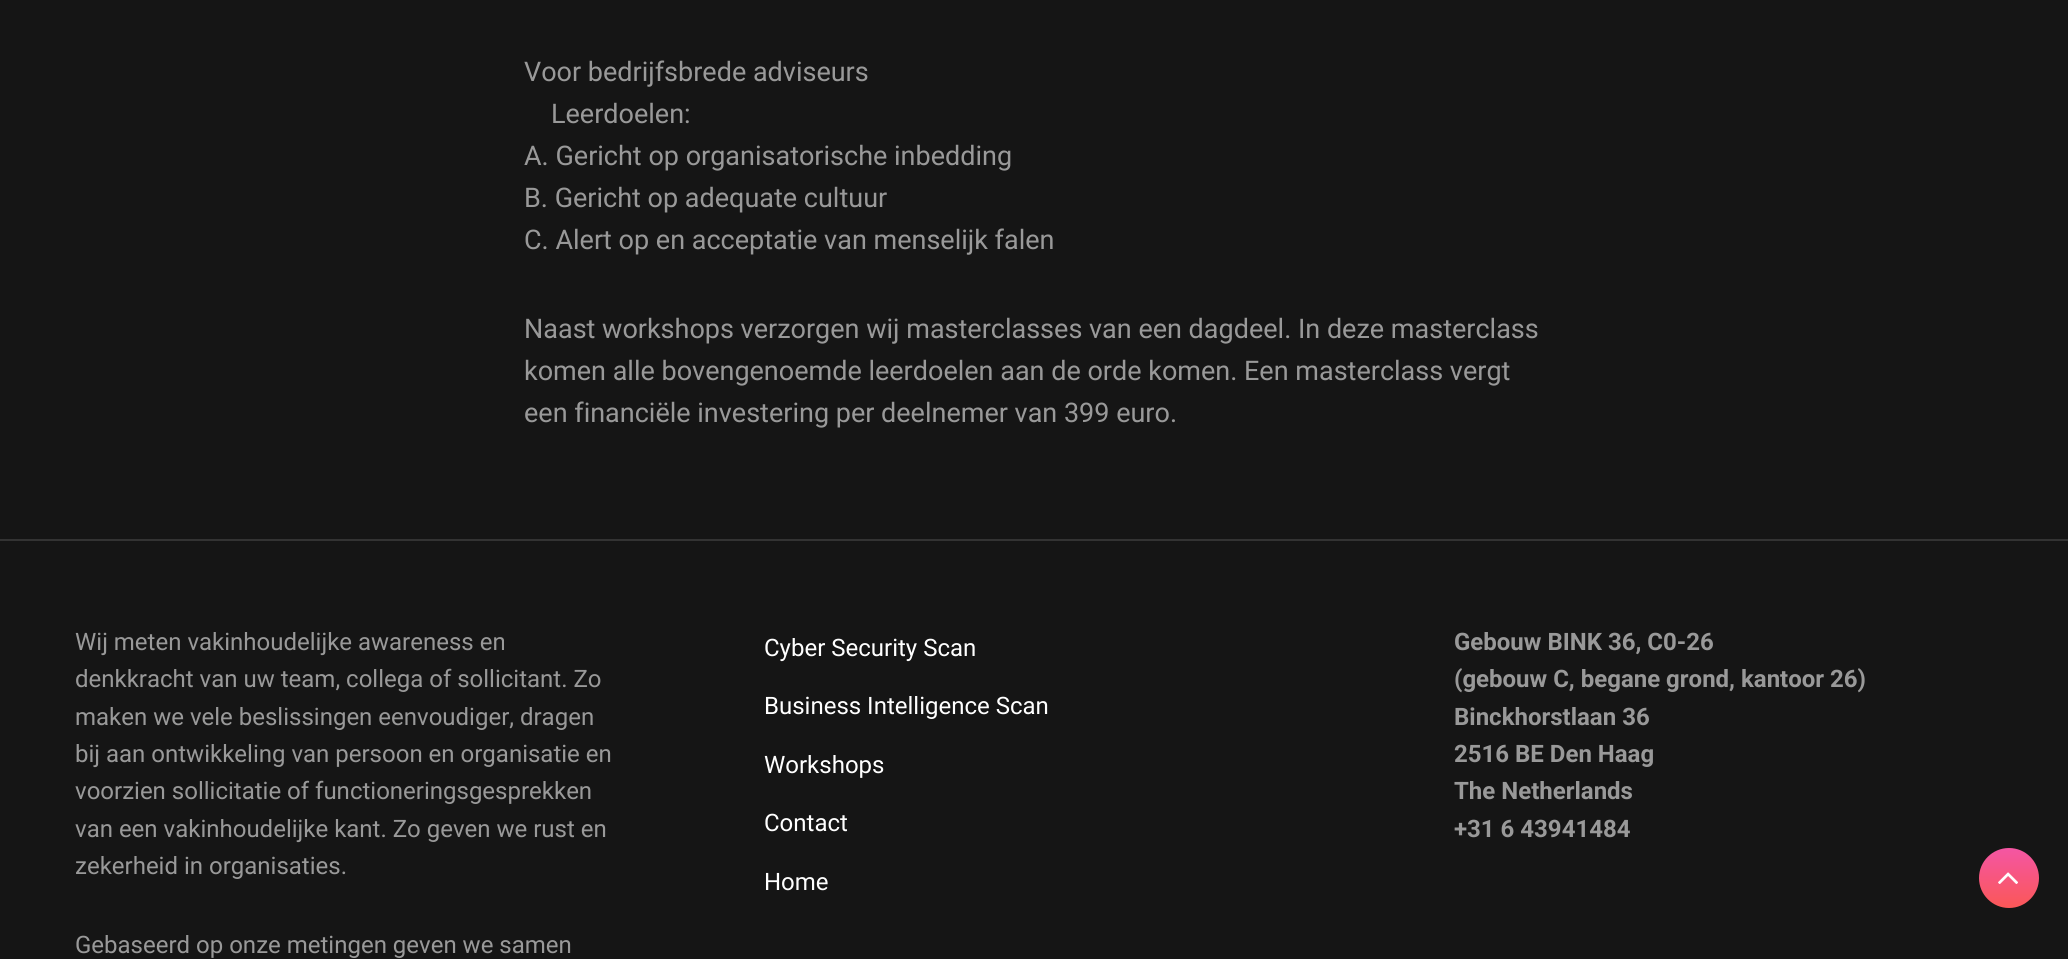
#include <cairo.h>
#include <math.h>
#include <stddef.h>


static void rgb(cairo_t *cr, int r, int g, int b)
{
	cairo_set_source_rgb(cr, r / 255.0, g / 255.0, b / 255.0);
}

static void face(cairo_t *cr, const char *family, double size, int italic, int bold)
{
	cairo_select_font_face(cr, family, italic ? CAIRO_FONT_SLANT_ITALIC : CAIRO_FONT_SLANT_NORMAL,
		bold ? CAIRO_FONT_WEIGHT_BOLD : CAIRO_FONT_WEIGHT_NORMAL);
	cairo_set_font_size(cr, size);
}

static void label(cairo_t *cr, double x, double y, const char *s)
{
	cairo_move_to(cr, x, y);
	cairo_show_text(cr, s);
}

static void rect(cairo_t *cr, double x, double y, double w, double h)
{
	cairo_rectangle(cr, x, y, w, h);
	cairo_fill(cr);
}

static void image(cairo_t *cr, const char *path, double x, double y, double w, double h)
{
	cairo_surface_t *image = cairo_image_surface_create_from_png(path);
	cairo_save(cr);
	cairo_set_source_surface(cr, image, x, y);
	cairo_rectangle(cr, x, y, w, h);
	cairo_fill(cr);
	cairo_restore(cr);
	cairo_surface_destroy(image);
}

static void draw(cairo_t *cr) {
	cairo_pattern_t *gradient;
	rgb(cr, 21, 21, 21);
	cairo_paint(cr);
	rgb(cr, 51, 51, 51);
	rect(cr, 0, 539, 2068, 2);
	face(cr, "Roboto", 27, 0, 0);
	rgb(cr, 153, 153, 153);
	label(cr, 524, 81, "Voor bedrijfsbrede adviseurs");
	label(cr, 551, 123, "Leerdoelen:");
	label(cr, 524, 165, "A. Gericht op organisatorische inbedding");
	label(cr, 524, 207, "B. Gericht op adequate cultuur");
	label(cr, 524, 249, "C. Alert op en acceptatie van menselijk falen");
	label(cr, 524, 338, "Naast workshops verzorgen wij masterclasses van een dagdeel. In deze masterclass");
	label(cr, 524, 380, "komen alle bovengenoemde leerdoelen aan de orde komen. Een masterclass vergt");
	label(cr, 524, 422, "een financiële investering per deelnemer van 399 euro.");
	face(cr, "Roboto", 24, 0, 0);
	label(cr, 75, 650, "Wij meten vakinhoudelijke awareness en");
	label(cr, 75, 687, "denkkracht van uw team, collega of sollicitant. Zo");
	label(cr, 75, 725, "maken we vele beslissingen eenvoudiger, dragen");
	label(cr, 75, 762, "bij aan ontwikkeling van persoon en organisatie en");
	label(cr, 75, 799, "voorzien sollicitatie of functioneringsgesprekken");
	label(cr, 75, 837, "van een vakinhoudelijke kant. Zo geven we rust en");
	label(cr, 75, 874, "zekerheid in organisaties.");
	label(cr, 75, 953, "Gebaseerd op onze metingen geven we samen");
	rgb(cr, 255, 255, 255);
	label(cr, 764, 656, "Cyber Security Scan");
	label(cr, 764, 714, "Business Intelligence Scan");
	label(cr, 764, 773, "Workshops");
	label(cr, 764, 831, "Contact");
	label(cr, 764, 890, "Home");
	face(cr, "Roboto", 24, 0, 1);
	rgb(cr, 153, 153, 153);
	label(cr, 1454, 650, "Gebouw BINK 36, C0-26");
	label(cr, 1454, 687, "(gebouw C, begane grond, kantoor 26)");
	label(cr, 1454, 725, "Binckhorstlaan 36");
	label(cr, 1454, 762, "2516 BE Den Haag");
	label(cr, 1454, 799, "The Netherlands");
	label(cr, 1454, 837, "+31 6 43941484");
	gradient = cairo_pattern_create_linear(2009, 848, 2009, 908);
	cairo_pattern_add_color_stop_rgba(gradient, 0, 0.957, 0.337, 0.643, 1);
	cairo_pattern_add_color_stop_rgba(gradient, 1, 0.984, 0.341, 0.341, 1);
	cairo_set_source(cr, gradient);
	cairo_pattern_destroy(gradient);
	cairo_new_path(cr);
	cairo_arc(cr, 2009, 878, 30, 0, 2 * M_PI);
	cairo_fill(cr);
	image(cr, "image0.png", 1998, 872, 20, 12);
}

int main(void) {
	cairo_surface_t *surface = cairo_image_surface_create(CAIRO_FORMAT_RGB24, 2068, 959);
	cairo_t *cr = cairo_create(surface);
	cairo_font_options_t *options = cairo_font_options_create();
	cairo_font_options_set_hint_metrics(options, CAIRO_HINT_METRICS_OFF);
	cairo_font_options_set_hint_style(options, CAIRO_HINT_STYLE_NONE);
	cairo_set_font_options(cr, options);
	cairo_set_miter_limit(cr, 4);
	draw(cr);
	cairo_surface_write_to_png(surface, "render.png");
	cairo_font_options_destroy(options);
	cairo_destroy(cr);
	cairo_surface_destroy(surface);
	return 0;
}
